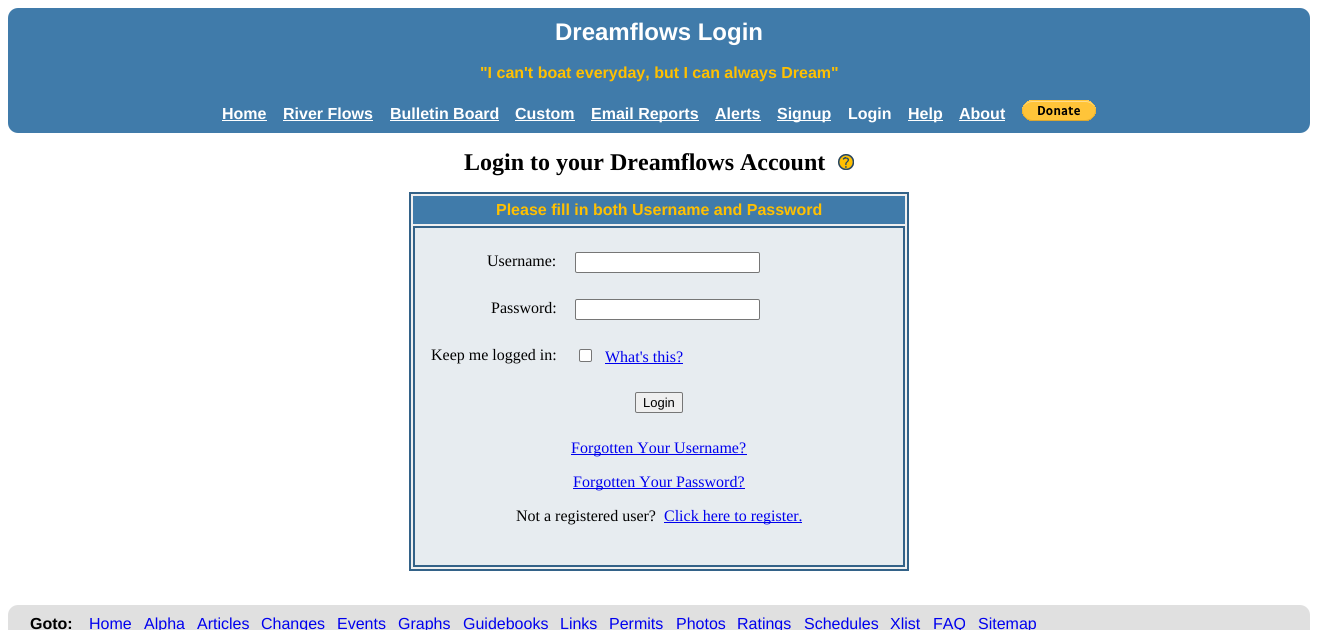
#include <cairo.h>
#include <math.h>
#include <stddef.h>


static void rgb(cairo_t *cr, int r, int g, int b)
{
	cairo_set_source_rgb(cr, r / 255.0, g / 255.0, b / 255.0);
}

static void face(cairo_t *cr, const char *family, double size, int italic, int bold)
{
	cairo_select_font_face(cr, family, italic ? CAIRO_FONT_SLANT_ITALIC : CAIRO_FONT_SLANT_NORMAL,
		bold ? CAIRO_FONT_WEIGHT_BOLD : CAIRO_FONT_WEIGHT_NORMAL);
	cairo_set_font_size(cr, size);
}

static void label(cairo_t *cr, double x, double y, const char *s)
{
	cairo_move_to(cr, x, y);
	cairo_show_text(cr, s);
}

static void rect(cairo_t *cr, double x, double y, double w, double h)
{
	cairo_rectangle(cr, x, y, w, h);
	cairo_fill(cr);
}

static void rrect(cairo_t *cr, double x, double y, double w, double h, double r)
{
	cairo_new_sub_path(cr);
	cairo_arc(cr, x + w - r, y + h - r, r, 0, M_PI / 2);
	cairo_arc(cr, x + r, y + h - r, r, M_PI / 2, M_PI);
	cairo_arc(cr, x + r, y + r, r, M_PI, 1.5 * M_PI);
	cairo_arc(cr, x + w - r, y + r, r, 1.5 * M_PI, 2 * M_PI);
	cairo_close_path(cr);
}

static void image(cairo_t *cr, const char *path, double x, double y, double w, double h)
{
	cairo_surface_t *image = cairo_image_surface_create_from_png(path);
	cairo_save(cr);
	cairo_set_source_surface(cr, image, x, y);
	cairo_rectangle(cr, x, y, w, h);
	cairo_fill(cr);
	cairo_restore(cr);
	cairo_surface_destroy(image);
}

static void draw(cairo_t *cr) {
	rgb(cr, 255, 255, 255);
	cairo_paint(cr);
	rgb(cr, 64, 123, 170);
	rrect(cr, 8, 8, 1302, 125, 10);
	cairo_fill(cr);
	face(cr, "Liberation Sans", 24, 0, 1);
	rgb(cr, 255, 255, 255);
	label(cr, 555, 40, "Dreamflows Login");
	face(cr, "Liberation Sans", 16, 0, 1);
	rgb(cr, 255, 192, 0);
	label(cr, 480, 78, "\"I can't boat everyday, but I can always Dream\"");
	rgb(cr, 255, 255, 255);
	label(cr, 222, 119, "Home");
	rect(cr, 222, 120, 45, 1);
	label(cr, 283, 119, "River Flows");
	rect(cr, 283, 120, 90, 1);
	label(cr, 390, 119, "Bulletin Board");
	rect(cr, 390, 120, 109, 1);
	label(cr, 515, 119, "Custom");
	rect(cr, 515, 120, 60, 1);
	rect(cr, 591, 120, 108, 1);
	label(cr, 591, 119, "Email Reports");
	label(cr, 715, 119, "Alerts");
	rect(cr, 715, 120, 46, 1);
	rect(cr, 777, 120, 54, 1);
	label(cr, 777, 119, "Signup");
	label(cr, 848, 119, "Login");
	rect(cr, 908, 120, 35, 1);
	label(cr, 908, 119, "Help");
	label(cr, 959, 119, "About");
	rect(cr, 959, 120, 46, 1);
	image(cr, "image0.png", 1022, 100, 74, 21);
	face(cr, "Liberation Serif", 24, 0, 1);
	rgb(cr, 0, 0, 0);
	label(cr, 464, 170, "Login to your Dreamflows Account");
	image(cr, "image1.png", 838, 154, 16, 16);
	rgb(cr, 240, 240, 240);
	cairo_rectangle(cr, 410, 193, 498, 377);
	cairo_fill_preserve(cr);
	rgb(cr, 51, 98, 136);
	cairo_stroke(cr);
	rgb(cr, 64, 123, 170);
	rect(cr, 413, 196, 492, 28);
	face(cr, "Liberation Sans", 16, 0, 1);
	rgb(cr, 255, 192, 0);
	label(cr, 496, 215, "Please fill in both Username and Password");
	cairo_rectangle(cr, 413.5, 226.5, 491, 340);
	rgb(cr, 51, 98, 136);
	cairo_set_line_width(cr, 1);
	cairo_stroke(cr);
	cairo_rectangle(cr, 414.5, 227.5, 489, 338);
	cairo_stroke(cr);
	rgb(cr, 231, 236, 240);
	rect(cr, 415, 228, 488, 337);
	face(cr, "Liberation Serif", 16, 0, 0);
	rgb(cr, 0, 0, 0);
	label(cr, 487, 266, "Username:");
	rgb(cr, 255, 255, 255);
	rrect(cr, 575.5, 252.5, 184, 20, 1.5);
	cairo_fill_preserve(cr);
	rgb(cr, 118, 118, 118);
	cairo_stroke(cr);
	rgb(cr, 0, 0, 0);
	label(cr, 491, 313, "Password:");
	rgb(cr, 255, 255, 255);
	rrect(cr, 575.5, 299.5, 184, 20, 1.5);
	cairo_fill_preserve(cr);
	rgb(cr, 118, 118, 118);
	cairo_stroke(cr);
	rgb(cr, 0, 0, 0);
	label(cr, 431, 360, "Keep me logged in:");
	rgb(cr, 255, 255, 255);
	rrect(cr, 579.5, 349.5, 12, 12, 1.5);
	cairo_fill_preserve(cr);
	rgb(cr, 118, 118, 118);
	cairo_stroke(cr);
	rgb(cr, 0, 0, 238);
	label(cr, 605, 362, "What's this?");
	rect(cr, 605, 363, 78, 1);
	rgb(cr, 239, 239, 239);
	rrect(cr, 635.5, 392.5, 47, 20, 1.5);
	cairo_fill_preserve(cr);
	rgb(cr, 118, 118, 118);
	cairo_stroke(cr);
	face(cr, "Liberation Sans", 13, 0, 0);
	rgb(cr, 0, 0, 0);
	label(cr, 643, 407, "Login");
	rgb(cr, 0, 0, 238);
	rect(cr, 571, 454, 176, 1);
	face(cr, "Liberation Serif", 16, 0, 0);
	label(cr, 571, 453, "Forgotten Your Username?");
	rect(cr, 573, 488, 172, 1);
	label(cr, 573, 487, "Forgotten Your Password?");
	rgb(cr, 0, 0, 0);
	label(cr, 516, 521, "Not a registered user?");
	rgb(cr, 0, 0, 238);
	rect(cr, 664, 522, 138, 1);
	label(cr, 664, 521, "Click here to register.");
	rgb(cr, 224, 224, 224);
	rrect(cr, 8, 605, 1302, 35, 10);
	cairo_fill(cr);
	face(cr, "Liberation Sans", 16, 0, 1);
	rgb(cr, 0, 0, 0);
	label(cr, 30, 629, "Goto:");
	face(cr, "Liberation Sans", 16, 0, 0);
	rgb(cr, 0, 0, 238);
	label(cr, 89, 629, "Home");
	label(cr, 144, 629, "Alpha");
	label(cr, 197, 629, "Articles");
	label(cr, 261, 629, "Changes");
	label(cr, 337, 629, "Events");
	label(cr, 398, 629, "Graphs");
	label(cr, 463, 629, "Guidebooks");
	label(cr, 560, 629, "Links");
	label(cr, 609, 629, "Permits");
	label(cr, 676, 629, "Photos");
	label(cr, 737, 629, "Ratings");
	label(cr, 804, 629, "Schedules");
	label(cr, 890, 629, "Xlist");
	label(cr, 933, 629, "FAQ");
	label(cr, 978, 629, "Sitemap");
}

int main(void) {
	cairo_surface_t *surface = cairo_image_surface_create(CAIRO_FORMAT_RGB24, 1318, 630);
	cairo_t *cr = cairo_create(surface);
	cairo_font_options_t *options = cairo_font_options_create();
	cairo_font_options_set_hint_metrics(options, CAIRO_HINT_METRICS_OFF);
	cairo_font_options_set_hint_style(options, CAIRO_HINT_STYLE_NONE);
	cairo_set_font_options(cr, options);
	cairo_set_miter_limit(cr, 4);
	draw(cr);
	cairo_surface_write_to_png(surface, "render.png");
	cairo_font_options_destroy(options);
	cairo_destroy(cr);
	cairo_surface_destroy(surface);
	return 0;
}
